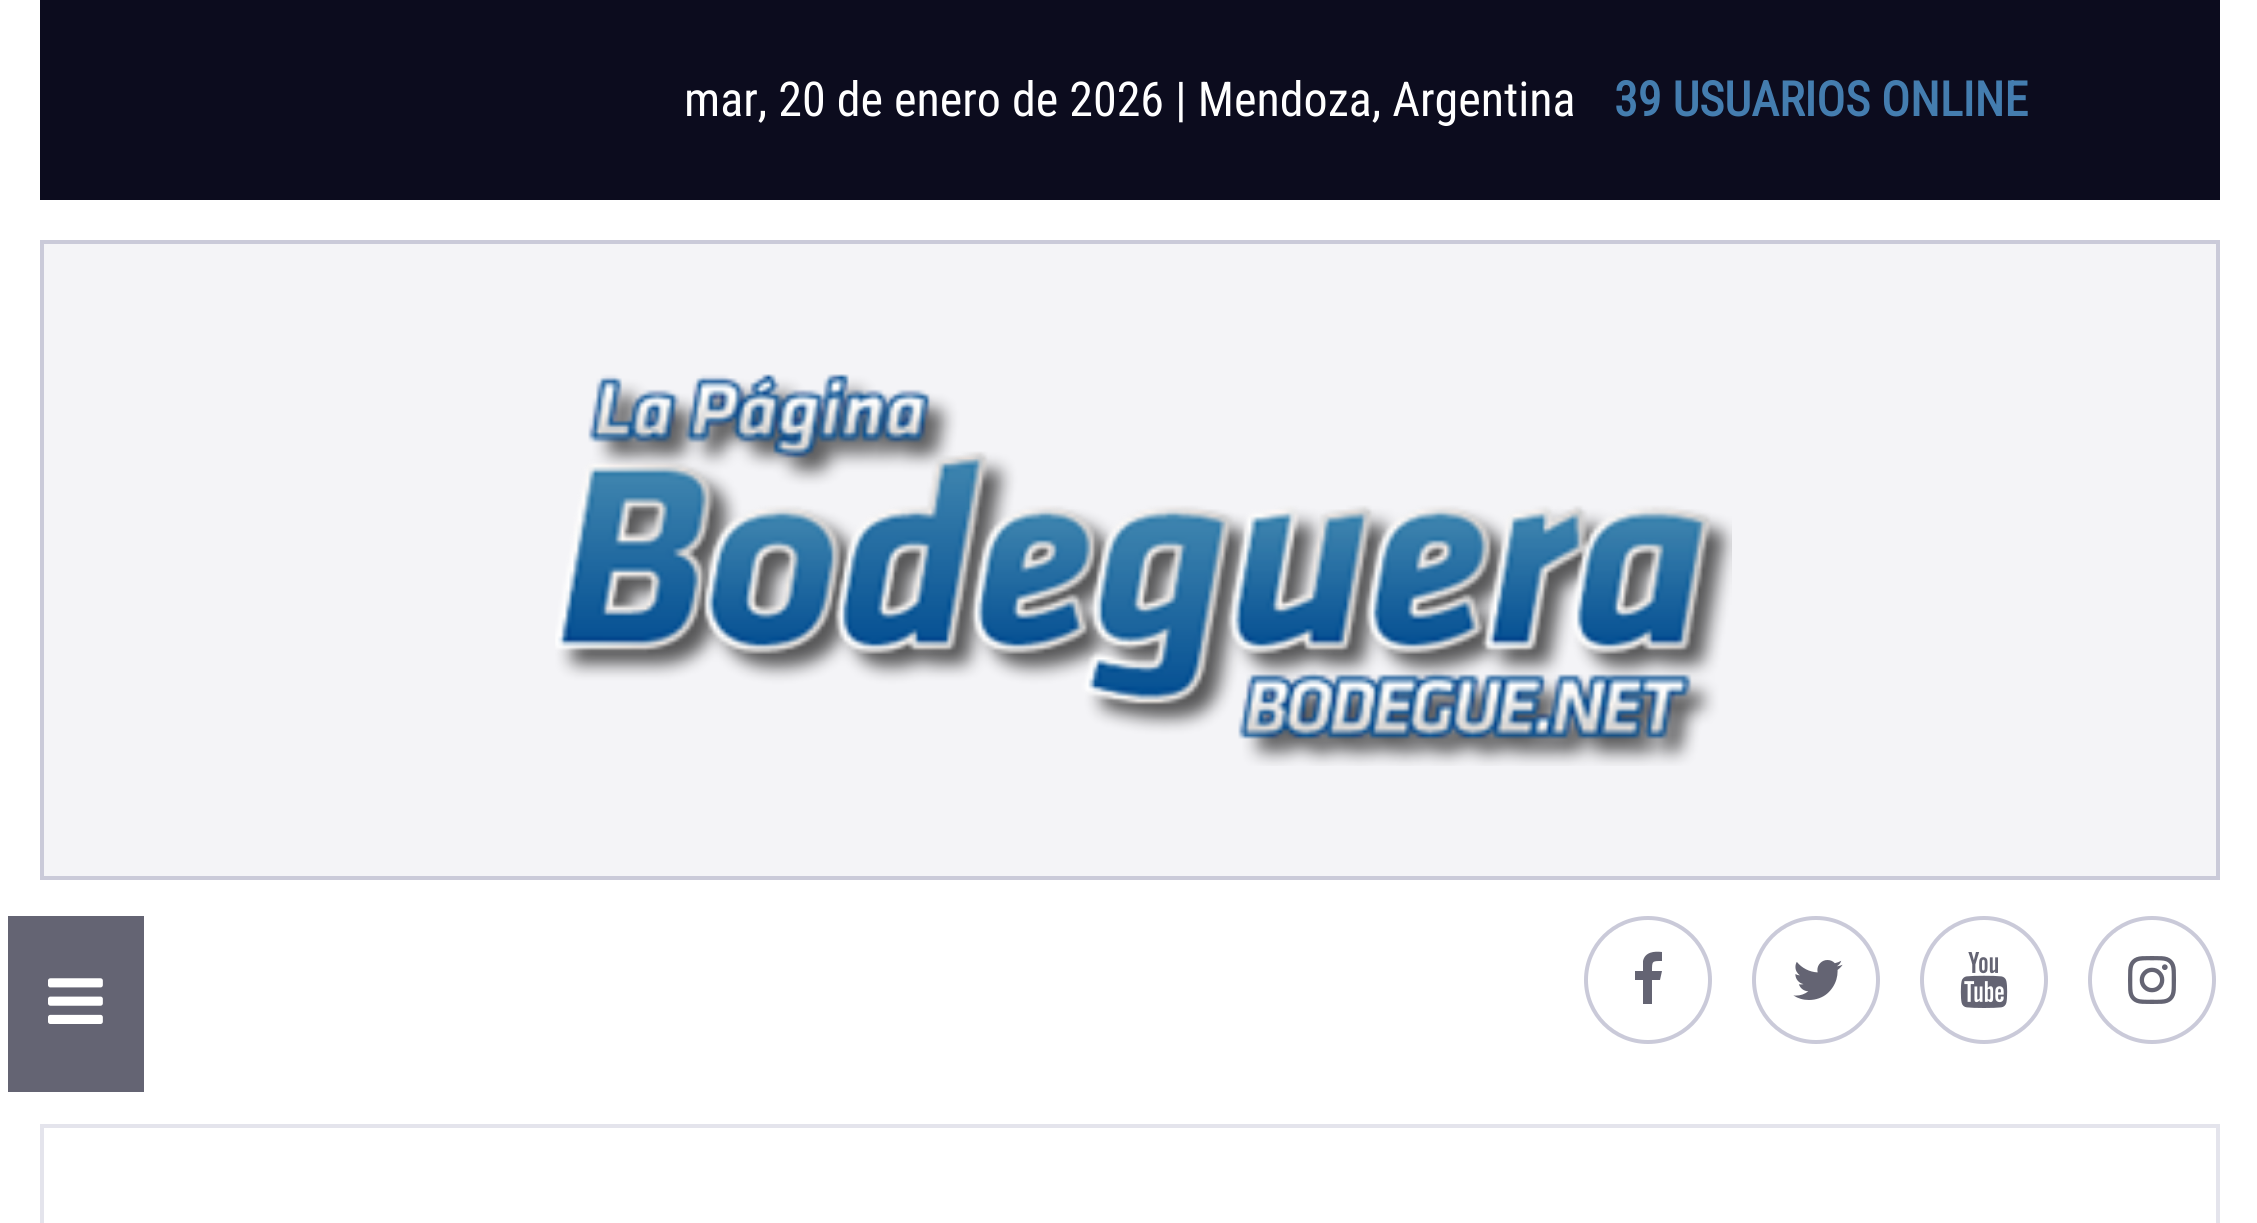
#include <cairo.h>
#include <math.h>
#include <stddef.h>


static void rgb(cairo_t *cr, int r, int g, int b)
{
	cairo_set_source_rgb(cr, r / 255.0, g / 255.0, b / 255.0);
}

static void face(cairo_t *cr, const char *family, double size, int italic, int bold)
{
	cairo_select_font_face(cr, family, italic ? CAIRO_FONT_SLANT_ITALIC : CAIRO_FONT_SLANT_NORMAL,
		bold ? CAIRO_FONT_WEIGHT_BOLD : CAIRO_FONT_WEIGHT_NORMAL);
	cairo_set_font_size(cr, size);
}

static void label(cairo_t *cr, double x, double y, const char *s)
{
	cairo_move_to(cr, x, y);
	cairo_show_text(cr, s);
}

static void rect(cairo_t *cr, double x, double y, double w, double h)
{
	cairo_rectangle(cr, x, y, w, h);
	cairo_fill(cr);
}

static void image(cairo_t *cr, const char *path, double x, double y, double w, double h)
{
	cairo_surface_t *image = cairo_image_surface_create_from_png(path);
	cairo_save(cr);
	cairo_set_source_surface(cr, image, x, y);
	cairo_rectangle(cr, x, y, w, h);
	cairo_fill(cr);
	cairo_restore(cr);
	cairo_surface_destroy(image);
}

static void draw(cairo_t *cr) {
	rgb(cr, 255, 255, 255);
	cairo_paint(cr);
	rgb(cr, 12, 12, 30);
	rect(cr, 40, 0, 2180, 200);
	face(cr, "Roboto Condensed", 48, 0, 0);
	rgb(cr, 255, 255, 255);
	label(cr, 684, 116, "mar, 20 de enero de 2026 | Mendoza, Argentina");
	face(cr, "Roboto Condensed", 48, 0, 1);
	rgb(cr, 68, 125, 175);
	label(cr, 1614, 116, "39 USUARIOS ONLINE");
	rgb(cr, 244, 244, 247);
	cairo_rectangle(cr, 42, 242, 2176, 636);
	cairo_fill_preserve(cr);
	rgb(cr, 202, 202, 217);
	cairo_set_line_width(cr, 4);
	cairo_stroke(cr);
	image(cr, "image0.png", 555, 374, 1177, 392);
	cairo_arc(cr, 1648, 980, 62, 0, 2 * M_PI);
	cairo_stroke(cr);
	rgb(cr, 100, 100, 115);
	cairo_new_path(cr);
	cairo_move_to(cr, 1662, 952);
	cairo_line_to(cr, 1662, 961);
	cairo_curve_to(cr, 1652, 961, 1652, 961, 1652, 971);
	cairo_line_to(cr, 1662, 971);
	cairo_line_to(cr, 1660, 980);
	cairo_line_to(cr, 1652, 980);
	cairo_line_to(cr, 1652, 1004);
	cairo_line_to(cr, 1643, 1004);
	cairo_line_to(cr, 1643, 980);
	cairo_line_to(cr, 1635, 980);
	cairo_line_to(cr, 1635, 971);
	cairo_line_to(cr, 1643, 971);
	cairo_line_to(cr, 1643, 961);
	cairo_curve_to(cr, 1645, 952, 1654, 951, 1662, 952);
	cairo_close_path(cr);
	cairo_fill(cr);
	cairo_arc(cr, 1816, 980, 62, 0, 2 * M_PI);
	rgb(cr, 202, 202, 217);
	cairo_stroke(cr);
	image(cr, "image1.png", 1793, 960, 50, 40);
	cairo_arc(cr, 1984, 980, 62, 0, 2 * M_PI);
	cairo_stroke(cr);
	image(cr, "image2.png", 1960, 952, 48, 56);
	cairo_arc(cr, 2152, 980, 62, 0, 2 * M_PI);
	cairo_stroke(cr);
	image(cr, "image3.png", 2128, 956, 48, 48);
	rgb(cr, 100, 100, 115);
	rect(cr, 8, 916, 136, 176);
	image(cr, "image4.png", 48, 978, 55, 46);
	cairo_rectangle(cr, 42, 1126, 2176, 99);
	rgb(cr, 228, 228, 236);
	cairo_stroke(cr);
}

int main(void) {
	cairo_surface_t *surface = cairo_image_surface_create(CAIRO_FORMAT_RGB24, 2257, 1223);
	cairo_t *cr = cairo_create(surface);
	cairo_font_options_t *options = cairo_font_options_create();
	cairo_font_options_set_hint_metrics(options, CAIRO_HINT_METRICS_OFF);
	cairo_font_options_set_hint_style(options, CAIRO_HINT_STYLE_NONE);
	cairo_set_font_options(cr, options);
	cairo_set_miter_limit(cr, 4);
	draw(cr);
	cairo_surface_write_to_png(surface, "render.png");
	cairo_font_options_destroy(options);
	cairo_destroy(cr);
	cairo_surface_destroy(surface);
	return 0;
}
